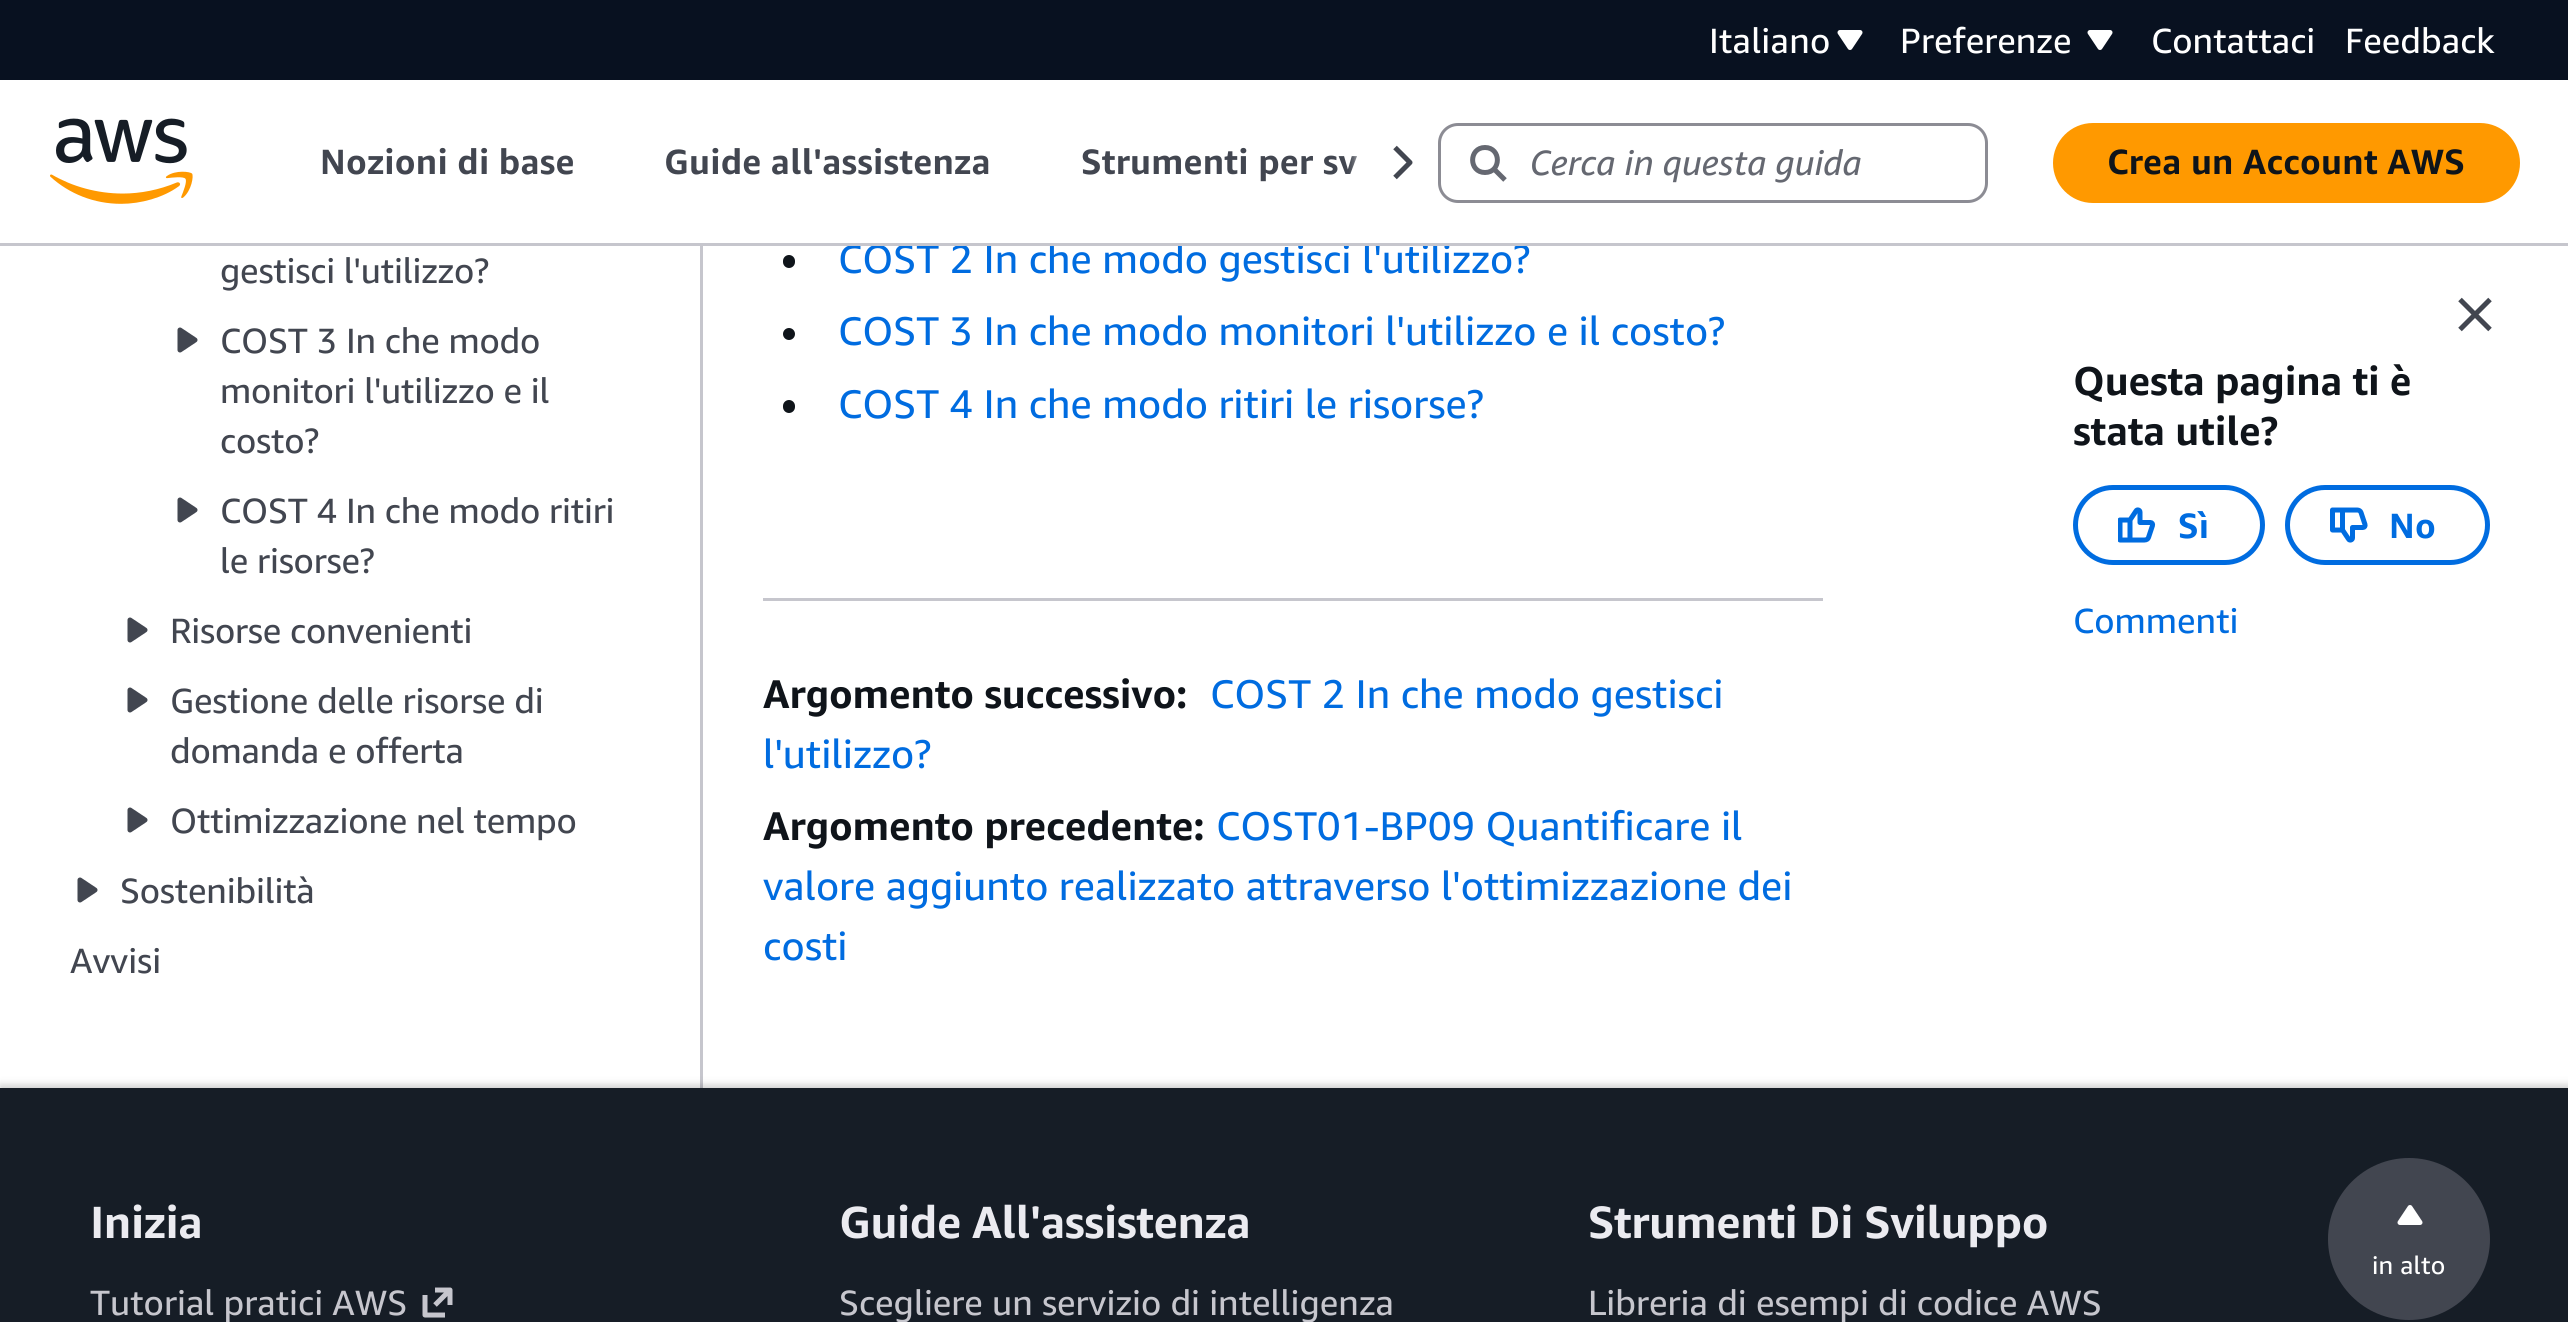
#include <cairo.h>
#include <math.h>
#include <stddef.h>


static void rgb(cairo_t *cr, int r, int g, int b)
{
	cairo_set_source_rgb(cr, r / 255.0, g / 255.0, b / 255.0);
}

static void face(cairo_t *cr, const char *family, double size, int italic, int bold)
{
	cairo_select_font_face(cr, family, italic ? CAIRO_FONT_SLANT_ITALIC : CAIRO_FONT_SLANT_NORMAL,
		bold ? CAIRO_FONT_WEIGHT_BOLD : CAIRO_FONT_WEIGHT_NORMAL);
	cairo_set_font_size(cr, size);
}

static void label(cairo_t *cr, double x, double y, const char *s)
{
	cairo_move_to(cr, x, y);
	cairo_show_text(cr, s);
}

static void tracked(cairo_t *cr, double x, double y, const char *s, double letter, double word)
{
	cairo_move_to(cr, x, y);
	while (*s) {
		char ch[5] = {0};
		int n = 0;
		do ch[n++] = *s++; while ((*s & 0xC0) == 0x80);
		cairo_show_text(cr, ch);
		cairo_rel_move_to(cr, letter + word * (*ch == ' '), 0);
	}
}

static void rect(cairo_t *cr, double x, double y, double w, double h)
{
	cairo_rectangle(cr, x, y, w, h);
	cairo_fill(cr);
}

static void rrect(cairo_t *cr, double x, double y, double w, double h, double r)
{
	cairo_new_sub_path(cr);
	cairo_arc(cr, x + w - r, y + h - r, r, 0, M_PI / 2);
	cairo_arc(cr, x + r, y + h - r, r, M_PI / 2, M_PI);
	cairo_arc(cr, x + r, y + r, r, M_PI, 1.5 * M_PI);
	cairo_arc(cr, x + w - r, y + r, r, 1.5 * M_PI, 2 * M_PI);
	cairo_close_path(cr);
}

static void soft_shadow(cairo_t *cr, double x, double y, double w, double h, double r, double blur, double alpha)
{
	cairo_push_group_with_content(cr, CAIRO_CONTENT_ALPHA);
	cairo_set_operator(cr, CAIRO_OPERATOR_SOURCE);
	for (int i = 15; i >= -15 && fmin(w, h) + blur * i / 3 > 0; i -= 2) {
		double e = blur * i / 6;
		cairo_set_source_rgba(cr, 0, 0, 0, alpha * erfc((i - 1) / 8.5) / 2);
		rrect(cr, x - e, y - e, w + 2 * e, h + 2 * e, fmax(0, fmin(r + e + blur * .6, fmin(w, h) / 2 + e)));
		cairo_fill(cr);
	}
	cairo_pattern_t *soft = cairo_pop_group(cr);
	cairo_mask(cr, soft);
	cairo_pattern_destroy(soft);
}

static void image(cairo_t *cr, const char *path, double x, double y, double w, double h)
{
	cairo_surface_t *image = cairo_image_surface_create_from_png(path);
	cairo_save(cr);
	cairo_set_source_surface(cr, image, x, y);
	cairo_rectangle(cr, x, y, w, h);
	cairo_fill(cr);
	cairo_restore(cr);
	cairo_surface_destroy(image);
}

static void draw(cairo_t *cr) {
	rgb(cr, 255, 255, 255);
	cairo_paint(cr);
	face(cr, "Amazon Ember", 40, 0, 0);
	rgb(cr, 0, 108, 224);
	label(cr, 838, 273, "COST 2 In che modo gestisci l'utilizzo?");
	rgb(cr, 198, 198, 205);
	rect(cr, 0, 243, 2568, 3);
	rgb(cr, 8, 17, 32);
	rect(cr, 0, 0, 2568, 80);
	face(cr, "Amazon Ember", 35, 0, 0);
	rgb(cr, 255, 255, 255);
	tracked(cr, 1709, 53, "Italiano", 0.2, 0);
	cairo_new_path(cr);
	cairo_move_to(cr, 1850, 47.5);
	cairo_line_to(cr, 1860, 32.5);
	cairo_line_to(cr, 1840, 32.5);
	cairo_close_path(cr);
	cairo_fill_preserve(cr);
	cairo_set_line_width(cr, 5);
	cairo_set_line_join(cr, CAIRO_LINE_JOIN_ROUND);
	cairo_stroke(cr);
	label(cr, 1900, 53, "Preferenze");
	cairo_new_path(cr);
	cairo_move_to(cr, 2100, 47.5);
	cairo_line_to(cr, 2110, 32.5);
	cairo_line_to(cr, 2090, 32.5);
	cairo_close_path(cr);
	cairo_fill_preserve(cr);
	cairo_stroke(cr);
	label(cr, 2151, 53, "Contattaci");
	label(cr, 2345, 53, "Feedback");
	image(cr, "image0.png", 50, 118, 143, 86);
	face(cr, "Amazon Ember", 35, 0, 1);
	rgb(cr, 66, 70, 80);
	tracked(cr, 320, 174, "Nozioni di base", 0.2, 0);
	tracked(cr, 664, 174, "Guide all'assistenza", 0.2, 0);
	tracked(cr, 1081, 174, "Strumenti per sv", 0.2, 0);
	cairo_save(cr);
	cairo_set_fill_rule(cr, CAIRO_FILL_RULE_EVEN_ODD);
	cairo_new_path(cr);
	cairo_move_to(cr, 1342, 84);
	cairo_line_to(cr, 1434, 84);
	cairo_line_to(cr, 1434, 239);
	cairo_line_to(cr, 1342, 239);
	cairo_close_path(cr);
	cairo_move_to(cr, 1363, 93);
	cairo_line_to(cr, 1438, 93);
	cairo_line_to(cr, 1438, 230);
	cairo_line_to(cr, 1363, 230);
	cairo_close_path(cr);
	cairo_clip(cr);
	rgb(cr, 255, 255, 255);
	soft_shadow(cr, 1358, 100, 60, 123, 0, 5, 1);
	cairo_restore(cr);
	cairo_new_path(cr);
	cairo_move_to(cr, 1395, 147.5);
	cairo_line_to(cr, 1410, 162.5);
	cairo_line_to(cr, 1395, 177.5);
	cairo_stroke(cr);
	rrect(cr, 1439.5, 124.5, 547, 77, 18.5);
	rgb(cr, 140, 140, 148);
	cairo_set_line_width(cr, 3);
	cairo_set_line_join(cr, CAIRO_LINE_JOIN_MITER);
	cairo_stroke(cr);
	cairo_new_path(cr);
	cairo_move_to(cr, 1495, 170);
	cairo_line_to(cr, 1505, 180);
	cairo_move_to(cr, 1485, 172.5);
	cairo_curve_to(cr, 1501.5, 172.5, 1501.5, 147.5, 1485, 147.5);
	cairo_curve_to(cr, 1468.5, 147.5, 1468.5, 172.5, 1485, 172.5);
	cairo_close_path(cr);
	rgb(cr, 101, 104, 113);
	cairo_set_line_width(cr, 5);
	cairo_set_line_join(cr, CAIRO_LINE_JOIN_ROUND);
	cairo_stroke(cr);
	face(cr, "Amazon Ember", 35, 1, 0);
	label(cr, 1530, 175, "Cerca in questa guida");
	rgb(cr, 255, 153, 0);
	rrect(cr, 2055.5, 125.5, 462, 75, 37.5);
	cairo_fill_preserve(cr);
	cairo_set_line_join(cr, CAIRO_LINE_JOIN_MITER);
	cairo_stroke(cr);
	face(cr, "Amazon Ember", 35, 0, 1);
	rgb(cr, 15, 20, 26);
	tracked(cr, 2107, 174, "Crea un Account AWS", 0.2, 0);
	rgb(cr, 198, 198, 205);
	rect(cr, 700, 246, 3, 842);
	face(cr, "Amazon Ember", 35, 0, 0);
	rgb(cr, 66, 70, 80);
	tracked(cr, 220, 283, "gestisci l'utilizzo?", -0.2, 0);
	cairo_new_path(cr);
	cairo_move_to(cr, 195, 340);
	cairo_line_to(cr, 180, 330);
	cairo_line_to(cr, 180, 350);
	cairo_close_path(cr);
	cairo_fill_preserve(cr);
	cairo_set_line_join(cr, CAIRO_LINE_JOIN_ROUND);
	cairo_stroke(cr);
	tracked(cr, 220, 353, "COST 3 In che modo", -0.2, 0);
	tracked(cr, 220, 403, "monitori l'utilizzo e il", -0.2, 0);
	tracked(cr, 220, 453, "costo?", -0.2, 0);
	cairo_new_path(cr);
	cairo_move_to(cr, 195, 510);
	cairo_line_to(cr, 180, 500);
	cairo_line_to(cr, 180, 520);
	cairo_close_path(cr);
	cairo_fill_preserve(cr);
	cairo_stroke(cr);
	tracked(cr, 220, 523, "COST 4 In che modo ritiri", -0.2, 0);
	tracked(cr, 220, 573, "le risorse?", -0.2, 0);
	cairo_new_path(cr);
	cairo_move_to(cr, 145, 630);
	cairo_line_to(cr, 130, 620);
	cairo_line_to(cr, 130, 640);
	cairo_close_path(cr);
	cairo_fill_preserve(cr);
	cairo_stroke(cr);
	tracked(cr, 170, 643, "Risorse convenienti", -0.2, 0);
	cairo_new_path(cr);
	cairo_move_to(cr, 145, 700);
	cairo_line_to(cr, 130, 690);
	cairo_line_to(cr, 130, 710);
	cairo_close_path(cr);
	cairo_fill_preserve(cr);
	cairo_stroke(cr);
	tracked(cr, 170, 713, "Gestione delle risorse di", -0.2, 0);
	tracked(cr, 170, 763, "domanda e offerta", -0.2, 0);
	cairo_new_path(cr);
	cairo_move_to(cr, 145, 820);
	cairo_line_to(cr, 130, 810);
	cairo_line_to(cr, 130, 830);
	cairo_close_path(cr);
	cairo_fill_preserve(cr);
	cairo_stroke(cr);
	tracked(cr, 170, 833, "Ottimizzazione nel tempo", -0.2, 0);
	cairo_new_path(cr);
	cairo_move_to(cr, 95, 890);
	cairo_line_to(cr, 80, 880);
	cairo_line_to(cr, 80, 900);
	cairo_close_path(cr);
	cairo_fill_preserve(cr);
	cairo_stroke(cr);
	tracked(cr, 120, 903, "Sostenibilità", -0.2, 0);
	label(cr, 70, 973, "Avvisi");
	rgb(cr, 15, 20, 26);
	rrect(cr, 783, 255, 12, 13, 6);
	cairo_fill(cr);
	cairo_arc(cr, 789, 334, 6, 0, 2 * M_PI);
	cairo_fill(cr);
	face(cr, "Amazon Ember", 40, 0, 0);
	rgb(cr, 0, 108, 224);
	label(cr, 838, 345, "COST 3 In che modo monitori l'utilizzo e il costo?");
	rgb(cr, 15, 20, 26);
	rrect(cr, 783, 400, 12, 13, 6);
	cairo_fill(cr);
	rgb(cr, 0, 108, 224);
	label(cr, 838, 418, "COST 4 In che modo ritiri le risorse?");
	cairo_new_path(cr);
	cairo_move_to(cr, 2460, 299.5);
	cairo_line_to(cr, 2490, 329.5);
	cairo_move_to(cr, 2460, 329.5);
	cairo_line_to(cr, 2490, 299.5);
	rgb(cr, 66, 70, 80);
	cairo_stroke(cr);
	face(cr, "Amazon Ember", 40, 0, 1);
	rgb(cr, 15, 20, 26);
	tracked(cr, 2073, 395, "Questa pagina ti è", -0.2, 0);
	tracked(cr, 2073, 445, "stata utile?", -0.2, 0);
	rrect(cr, 2075.5, 487.5, 187, 75, 37.5);
	rgb(cr, 0, 108, 224);
	cairo_set_line_join(cr, CAIRO_LINE_JOIN_MITER);
	cairo_stroke(cr);
	cairo_save(cr);
	cairo_rectangle(cr, 2118, 505, 40, 40);
	cairo_clip(cr);
	cairo_new_path(cr);
	cairo_move_to(cr, 2140, 512);
	cairo_line_to(cr, 2140, 522.5);
	cairo_line_to(cr, 2150.5, 522.5);
	cairo_curve_to(cr, 2152, 522.5, 2153, 524, 2152.5, 525.5);
	cairo_line_to(cr, 2148.5, 537.5);
	cairo_curve_to(cr, 2148, 539, 2146.5, 540, 2144.5, 540);
	cairo_line_to(cr, 2120, 540);
	cairo_line_to(cr, 2120, 520);
	cairo_line_to(cr, 2130, 520);
	cairo_line_to(cr, 2136, 511);
	cairo_curve_to(cr, 2137, 509, 2140, 510, 2140, 512);
	cairo_close_path(cr);
	cairo_move_to(cr, 2130, 540);
	cairo_line_to(cr, 2130, 520);
	cairo_set_line_join(cr, CAIRO_LINE_JOIN_ROUND);
	cairo_stroke(cr);
	cairo_restore(cr);
	face(cr, "Amazon Ember", 35, 0, 1);
	tracked(cr, 2178, 538, "Sì", 0.2, 0);
	rrect(cr, 2287.5, 487.5, 200, 75, 37.5);
	cairo_stroke(cr);
	cairo_new_path(cr);
	cairo_move_to(cr, 2352.5, 538);
	cairo_line_to(cr, 2352.5, 527.5);
	cairo_line_to(cr, 2363, 527.5);
	cairo_curve_to(cr, 2364.5, 527.5, 2365.5, 526, 2365, 524.5);
	cairo_line_to(cr, 2361, 512.5);
	cairo_curve_to(cr, 2360.5, 511, 2359, 510, 2357, 510);
	cairo_line_to(cr, 2332.5, 510);
	cairo_line_to(cr, 2332.5, 530);
	cairo_line_to(cr, 2342.5, 530);
	cairo_line_to(cr, 2348.5, 539);
	cairo_curve_to(cr, 2349.5, 541, 2352.5, 540, 2352.5, 538);
	cairo_close_path(cr);
	cairo_move_to(cr, 2342.5, 510);
	cairo_line_to(cr, 2342.5, 530);
	cairo_set_line_join(cr, CAIRO_LINE_JOIN_ROUND);
	cairo_stroke(cr);
	tracked(cr, 2389, 538, "No", 0.2, 0);
	face(cr, "Amazon Ember", 35, 0, 0);
	label(cr, 2073, 633, "Commenti");
	rgb(cr, 198, 198, 205);
	rect(cr, 763, 598, 1060, 3);
	face(cr, "Amazon Ember", 40, 0, 1);
	rgb(cr, 15, 20, 26);
	tracked(cr, 763, 708, "Argomento successivo:", -0.2, 0);
	face(cr, "Amazon Ember", 40, 0, 0);
	rgb(cr, 0, 108, 224);
	label(cr, 1210, 708, "COST 2 In che modo gestisci");
	label(cr, 763, 768, "l'utilizzo?");
	face(cr, "Amazon Ember", 40, 0, 1);
	rgb(cr, 15, 20, 26);
	tracked(cr, 763, 840, "Argomento precedente:", -0.2, 0);
	face(cr, "Amazon Ember", 40, 0, 0);
	rgb(cr, 0, 108, 224);
	label(cr, 1216, 840, "COST01-BP09 Quantificare il");
	label(cr, 763, 900, "valore aggiunto realizzato attraverso l'ottimizzazione dei");
	label(cr, 763, 960, "costi");
	rgb(cr, 0, 0, 0);
	soft_shadow(cr, 0, 1085, 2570, 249, 0, 4, 0.2);
	rgb(cr, 22, 29, 38);
	rect(cr, 0, 1088, 2568, 234);
	face(cr, "Amazon Ember", 45, 0, 1);
	rgb(cr, 235, 235, 240);
	tracked(cr, 90, 1238, "Inizia", -0.45, 0);
	face(cr, "Amazon Ember", 35, 0, 0);
	rgb(cr, 198, 198, 205);
	label(cr, 90, 1315, "Tutorial pratici AWS");
	cairo_new_path(cr);
	cairo_move_to(cr, 450, 1305);
	cairo_line_to(cr, 450, 1290);
	cairo_line_to(cr, 435, 1290);
	cairo_move_to(cr, 450, 1290);
	cairo_line_to(cr, 435, 1305);
	cairo_move_to(cr, 425, 1295);
	cairo_line_to(cr, 425, 1315);
	cairo_line_to(cr, 445, 1315);
	cairo_stroke(cr);
	face(cr, "Amazon Ember", 45, 0, 1);
	rgb(cr, 235, 235, 240);
	tracked(cr, 839, 1238, "Guide All'assistenza", -0.45, 0);
	face(cr, "Amazon Ember", 35, 0, 0);
	rgb(cr, 198, 198, 205);
	label(cr, 839, 1315, "Scegliere un servizio di intelligenza");
	face(cr, "Amazon Ember", 45, 0, 1);
	rgb(cr, 235, 235, 240);
	tracked(cr, 1588, 1238, "Strumenti Di Sviluppo", -0.45, 0);
	face(cr, "Amazon Ember", 35, 0, 0);
	rgb(cr, 198, 198, 205);
	label(cr, 1588, 1315, "Libreria di esempi di codice AWS");
	rgb(cr, 66, 70, 80);
	cairo_new_path(cr);
	cairo_arc(cr, 2409, 1239, 81, 0, 2 * M_PI);
	cairo_fill(cr);
	rgb(cr, 255, 255, 255);
	cairo_new_path(cr);
	cairo_move_to(cr, 2410, 1207.5);
	cairo_line_to(cr, 2420, 1222.5);
	cairo_line_to(cr, 2400, 1222.5);
	cairo_close_path(cr);
	cairo_fill_preserve(cr);
	cairo_stroke(cr);
	face(cr, "Amazon Ember", 25, 0, 0);
	tracked(cr, 2372, 1274, "in alto", 0.2, 0);
}

int main(void) {
	cairo_surface_t *surface = cairo_image_surface_create(CAIRO_FORMAT_RGB24, 2568, 1322);
	cairo_t *cr = cairo_create(surface);
	cairo_font_options_t *options = cairo_font_options_create();
	cairo_font_options_set_hint_metrics(options, CAIRO_HINT_METRICS_OFF);
	cairo_font_options_set_hint_style(options, CAIRO_HINT_STYLE_NONE);
	cairo_set_font_options(cr, options);
	cairo_set_miter_limit(cr, 4);
	draw(cr);
	cairo_surface_write_to_png(surface, "render.png");
	cairo_font_options_destroy(options);
	cairo_destroy(cr);
	cairo_surface_destroy(surface);
	return 0;
}
